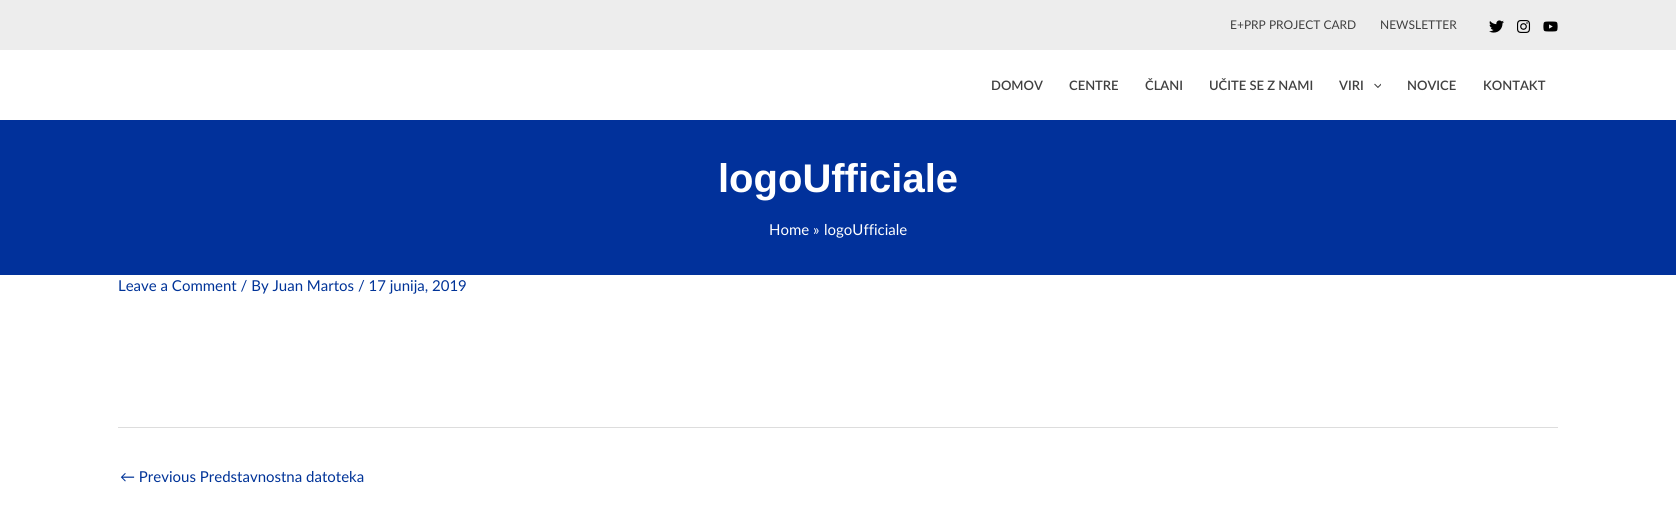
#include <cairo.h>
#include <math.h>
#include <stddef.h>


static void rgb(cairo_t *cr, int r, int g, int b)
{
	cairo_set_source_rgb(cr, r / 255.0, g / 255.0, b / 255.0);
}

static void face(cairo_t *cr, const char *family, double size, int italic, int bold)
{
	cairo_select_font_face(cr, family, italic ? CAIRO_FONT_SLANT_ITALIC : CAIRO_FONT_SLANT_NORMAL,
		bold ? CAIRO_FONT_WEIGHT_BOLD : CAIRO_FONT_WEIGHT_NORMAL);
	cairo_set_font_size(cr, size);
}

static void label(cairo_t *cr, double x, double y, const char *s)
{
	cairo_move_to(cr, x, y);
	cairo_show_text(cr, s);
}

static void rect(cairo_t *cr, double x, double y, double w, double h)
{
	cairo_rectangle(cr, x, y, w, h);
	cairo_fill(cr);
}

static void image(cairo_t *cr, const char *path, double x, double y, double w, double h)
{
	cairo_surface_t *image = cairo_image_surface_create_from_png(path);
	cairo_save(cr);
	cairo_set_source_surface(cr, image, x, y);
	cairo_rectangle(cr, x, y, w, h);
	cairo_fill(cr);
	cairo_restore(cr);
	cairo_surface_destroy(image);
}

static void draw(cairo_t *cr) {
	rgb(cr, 255, 255, 255);
	cairo_paint(cr);
	rgb(cr, 237, 237, 237);
	rect(cr, 0, 0, 1676, 50);
	face(cr, "Lato", 12, 0, 0);
	rgb(cr, 64, 64, 64);
	label(cr, 1230, 29, "E+PRP PROJECT CARD");
	label(cr, 1380, 29, "NEWSLETTER");
	image(cr, "image0.png", 1489, 20, 15, 13);
	image(cr, "image1.png", 1517, 20, 14, 13);
	image(cr, "image2.png", 1543, 21, 15, 11);
	face(cr, "Lato SemiBold", 13, 0, 0);
	label(cr, 991, 90, "DOMOV");
	label(cr, 1069, 90, "CENTRE");
	label(cr, 1145, 90, "ČLANI");
	label(cr, 1209, 90, "UČITE SE Z NAMI");
	label(cr, 1339, 90, "VIRI");
	image(cr, "image3.png", 1374, 83, 7, 5);
	label(cr, 1407, 90, "NOVICE");
	label(cr, 1483, 90, "KONTAKT");
	rgb(cr, 1, 49, 155);
	rect(cr, 0, 120, 1676, 155);
	face(cr, "Liberation Sans", 40, 0, 1);
	rgb(cr, 255, 255, 255);
	label(cr, 718, 192, "logoUfficiale");
	face(cr, "Lato", 15, 0, 0);
	label(cr, 769, 235, "Home");
	label(cr, 813, 235, "»");
	label(cr, 824, 235, "logoUfficiale");
	rgb(cr, 0, 51, 152);
	label(cr, 118, 291, "Leave a Comment / By Juan Martos / 17 junija, 2019");
	rgb(cr, 221, 221, 221);
	rect(cr, 118, 427, 1440, 1);
	rgb(cr, 0, 51, 152);
	label(cr, 120, 482, "← Previous Predstavnostna datoteka");
}

int main(void) {
	cairo_surface_t *surface = cairo_image_surface_create(CAIRO_FORMAT_RGB24, 1676, 522);
	cairo_t *cr = cairo_create(surface);
	cairo_font_options_t *options = cairo_font_options_create();
	cairo_font_options_set_hint_metrics(options, CAIRO_HINT_METRICS_OFF);
	cairo_font_options_set_hint_style(options, CAIRO_HINT_STYLE_NONE);
	cairo_set_font_options(cr, options);
	cairo_set_miter_limit(cr, 4);
	draw(cr);
	cairo_surface_write_to_png(surface, "render.png");
	cairo_font_options_destroy(options);
	cairo_destroy(cr);
	cairo_surface_destroy(surface);
	return 0;
}
